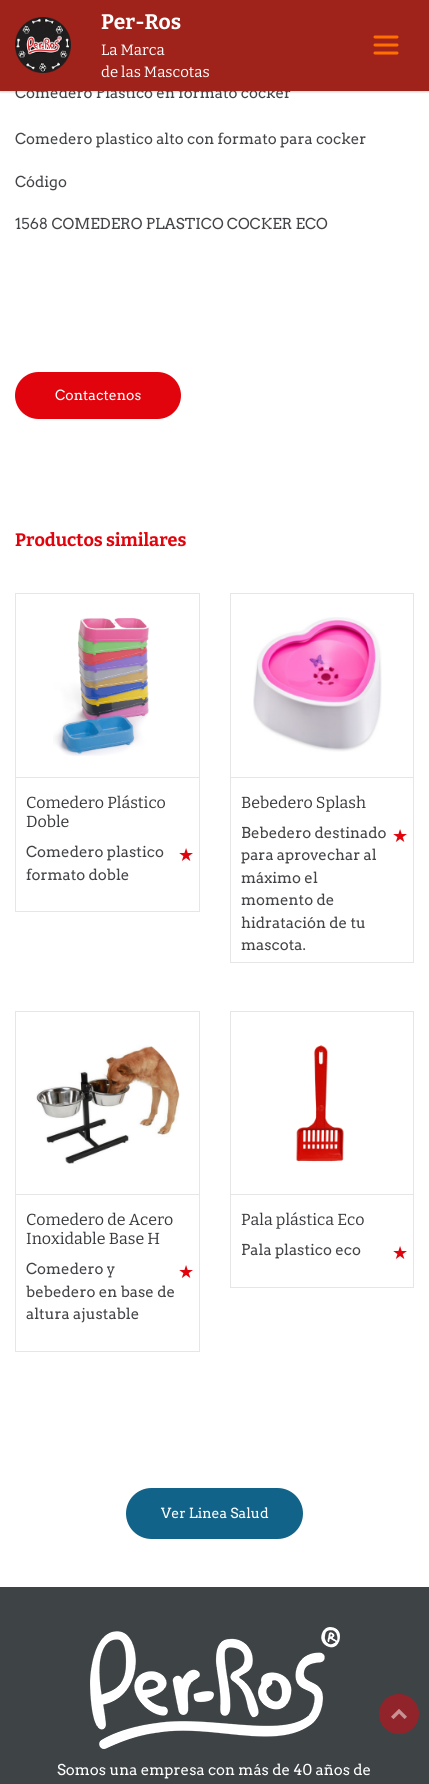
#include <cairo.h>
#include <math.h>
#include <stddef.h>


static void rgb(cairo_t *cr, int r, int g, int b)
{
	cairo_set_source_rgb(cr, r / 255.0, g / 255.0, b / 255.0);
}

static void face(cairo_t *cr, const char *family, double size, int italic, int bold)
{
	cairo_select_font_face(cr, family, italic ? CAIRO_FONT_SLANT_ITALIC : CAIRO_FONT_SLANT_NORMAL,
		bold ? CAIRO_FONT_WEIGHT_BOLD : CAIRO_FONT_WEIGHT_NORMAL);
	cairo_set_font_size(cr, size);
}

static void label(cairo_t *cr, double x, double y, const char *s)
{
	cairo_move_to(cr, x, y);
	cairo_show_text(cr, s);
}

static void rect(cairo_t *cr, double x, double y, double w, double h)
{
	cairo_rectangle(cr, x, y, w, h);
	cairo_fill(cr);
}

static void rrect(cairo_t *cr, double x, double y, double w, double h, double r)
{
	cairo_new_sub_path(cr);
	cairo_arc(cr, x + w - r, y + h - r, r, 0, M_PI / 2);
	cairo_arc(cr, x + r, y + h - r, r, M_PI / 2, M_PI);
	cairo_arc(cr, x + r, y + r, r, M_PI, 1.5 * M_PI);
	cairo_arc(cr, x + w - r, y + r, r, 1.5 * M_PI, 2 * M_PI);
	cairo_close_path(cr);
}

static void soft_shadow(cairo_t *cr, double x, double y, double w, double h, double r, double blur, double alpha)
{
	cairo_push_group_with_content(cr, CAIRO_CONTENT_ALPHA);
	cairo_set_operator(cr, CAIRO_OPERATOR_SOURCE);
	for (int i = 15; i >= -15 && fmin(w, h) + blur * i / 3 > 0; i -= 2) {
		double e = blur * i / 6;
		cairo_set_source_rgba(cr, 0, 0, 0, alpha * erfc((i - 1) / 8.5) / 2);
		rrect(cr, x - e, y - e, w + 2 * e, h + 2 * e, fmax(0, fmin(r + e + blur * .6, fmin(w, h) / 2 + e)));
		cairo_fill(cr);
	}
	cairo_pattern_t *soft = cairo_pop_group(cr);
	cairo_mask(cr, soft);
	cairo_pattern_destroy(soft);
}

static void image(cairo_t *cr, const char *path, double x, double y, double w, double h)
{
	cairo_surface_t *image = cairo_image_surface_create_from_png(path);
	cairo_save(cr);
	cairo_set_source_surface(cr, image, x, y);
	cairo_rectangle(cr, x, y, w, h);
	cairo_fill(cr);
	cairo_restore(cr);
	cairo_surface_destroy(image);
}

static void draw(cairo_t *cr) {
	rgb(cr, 255, 255, 255);
	cairo_paint(cr);
	rgb(cr, 0, 0, 0);
	soft_shadow(cr, 0, -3, 429, 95, 0, 1, 0.2);
	face(cr, "Arvo", 15, 0, 0);
	rgb(cr, 67, 68, 71);
	label(cr, 15, 98, "Comedero Plastico en formato cocker");
	rgb(cr, 160, 35, 27);
	rect(cr, 0, 0, 429, 91);
	image(cr, "image0.png", 15, 17, 56, 56);
	face(cr, "Bitter", 21, 0, 1);
	rgb(cr, 255, 255, 255);
	label(cr, 101, 29, "Per-Ros");
	face(cr, "Bitter", 15, 0, 0);
	label(cr, 101, 55, "La Marca");
	label(cr, 101, 77, "de las Mascotas");
	cairo_new_path(cr);
	cairo_move_to(cr, 375, 37);
	cairo_line_to(cr, 397, 37);
	cairo_move_to(cr, 375, 45);
	cairo_line_to(cr, 397, 45);
	cairo_move_to(cr, 375, 53);
	cairo_line_to(cr, 397, 53);
	rgb(cr, 255, 112, 0);
	cairo_set_line_width(cr, 3);
	cairo_set_line_cap(cr, CAIRO_LINE_CAP_ROUND);
	cairo_stroke(cr);
	face(cr, "Arvo", 15, 0, 0);
	rgb(cr, 67, 68, 71);
	label(cr, 15, 144, "Comedero plastico alto con formato para cocker");
	label(cr, 15, 187, "Código");
	label(cr, 15, 229, "1568 COMEDERO PLASTICO COCKER ECO");
	rgb(cr, 225, 4, 13);
	rrect(cr, 15, 372, 166, 47, 23.5);
	cairo_fill(cr);
	face(cr, "Arvo", 14, 0, 0);
	rgb(cr, 255, 255, 255);
	label(cr, 55, 400, "Contactenos");
	face(cr, "Bitter", 18, 0, 1);
	rgb(cr, 225, 4, 13);
	label(cr, 15, 546, "Productos similares");
	cairo_rectangle(cr, 15.5, 593.5, 184, 318);
	rgb(cr, 230, 230, 230);
	cairo_set_line_width(cr, 1);
	cairo_set_line_cap(cr, CAIRO_LINE_CAP_BUTT);
	cairo_stroke(cr);
	image(cr, "image1.png", 53, 618, 97, 138);
	rect(cr, 16, 777, 183, 1);
	face(cr, "Bitter", 16, 0, 0);
	rgb(cr, 55, 56, 59);
	label(cr, 26, 808, "Comedero Plástico");
	label(cr, 26, 827, "Doble");
	face(cr, "Arvo", 15, 0, 0);
	rgb(cr, 67, 68, 71);
	label(cr, 26, 857, "Comedero plastico");
	label(cr, 26, 880, "formato doble");
	face(cr, "DejaVu Sans", 18, 0, 0);
	rgb(cr, 225, 4, 13);
	label(cr, 178, 861, "★");
	cairo_rectangle(cr, 230.5, 593.5, 183, 369);
	rgb(cr, 230, 230, 230);
	cairo_stroke(cr);
	image(cr, "image2.png", 253, 617, 129, 135);
	rect(cr, 231, 777, 182, 1);
	face(cr, "Bitter", 16, 0, 0);
	rgb(cr, 55, 56, 59);
	label(cr, 241, 808, "Bebedero Splash");
	face(cr, "Arvo", 15, 0, 0);
	rgb(cr, 67, 68, 71);
	label(cr, 241, 838, "Bebedero destinado");
	label(cr, 241, 860, "para aprovechar al");
	label(cr, 241, 883, "máximo el");
	label(cr, 241, 905, "momento de");
	label(cr, 241, 928, "hidratación de tu");
	label(cr, 241, 950, "mascota.");
	face(cr, "DejaVu Sans", 18, 0, 0);
	rgb(cr, 225, 4, 13);
	label(cr, 392, 842, "★");
	cairo_rectangle(cr, 15.5, 1011.5, 184, 340);
	rgb(cr, 230, 230, 230);
	cairo_stroke(cr);
	image(cr, "image3.png", 36, 1045, 144, 119);
	rect(cr, 16, 1194, 183, 1);
	face(cr, "Bitter", 16, 0, 0);
	rgb(cr, 55, 56, 59);
	label(cr, 26, 1225, "Comedero de Acero");
	label(cr, 26, 1244, "Inoxidable Base H");
	face(cr, "Arvo", 15, 0, 0);
	rgb(cr, 67, 68, 71);
	label(cr, 26, 1274, "Comedero y");
	label(cr, 26, 1297, "bebedero en base de");
	label(cr, 26, 1319, "altura ajustable");
	face(cr, "DejaVu Sans", 18, 0, 0);
	rgb(cr, 225, 4, 13);
	label(cr, 178, 1278, "★");
	cairo_rectangle(cr, 230.5, 1011.5, 183, 276);
	rgb(cr, 230, 230, 230);
	cairo_stroke(cr);
	image(cr, "image4.png", 296, 1045, 48, 117);
	rect(cr, 231, 1194, 182, 1);
	face(cr, "Bitter", 16, 0, 0);
	rgb(cr, 55, 56, 59);
	label(cr, 241, 1225, "Pala plástica Eco");
	face(cr, "Arvo", 15, 0, 0);
	rgb(cr, 67, 68, 71);
	label(cr, 241, 1255, "Pala plastico eco");
	face(cr, "DejaVu Sans", 18, 0, 0);
	rgb(cr, 225, 4, 13);
	label(cr, 392, 1259, "★");
	rgb(cr, 18, 99, 137);
	rrect(cr, 126, 1488, 177, 51, 25.5);
	cairo_fill(cr);
	face(cr, "Arvo", 14, 0, 0);
	rgb(cr, 255, 255, 255);
	label(cr, 161, 1518, "Ver Linea Salud");
	rgb(cr, 62, 67, 70);
	rect(cr, 0, 1587, 429, 197);
	rgb(cr, 144, 36, 42);
	cairo_new_path(cr);
	cairo_arc(cr, 399, 1714, 20, 0, 2 * M_PI);
	cairo_fill(cr);
	image(cr, "image5.png", 391, 1709, 16, 10);
	image(cr, "image6.png", 90, 1627, 250, 122);
	face(cr, "Arvo", 15, 0, 0);
	rgb(cr, 255, 255, 255);
	label(cr, 57, 1775, "Somos una empresa con más de 40 años de");
}

int main(void) {
	cairo_surface_t *surface = cairo_image_surface_create(CAIRO_FORMAT_RGB24, 429, 1784);
	cairo_t *cr = cairo_create(surface);
	cairo_font_options_t *options = cairo_font_options_create();
	cairo_font_options_set_hint_metrics(options, CAIRO_HINT_METRICS_OFF);
	cairo_font_options_set_hint_style(options, CAIRO_HINT_STYLE_NONE);
	cairo_set_font_options(cr, options);
	cairo_set_miter_limit(cr, 4);
	draw(cr);
	cairo_surface_write_to_png(surface, "render.png");
	cairo_font_options_destroy(options);
	cairo_destroy(cr);
	cairo_surface_destroy(surface);
	return 0;
}
